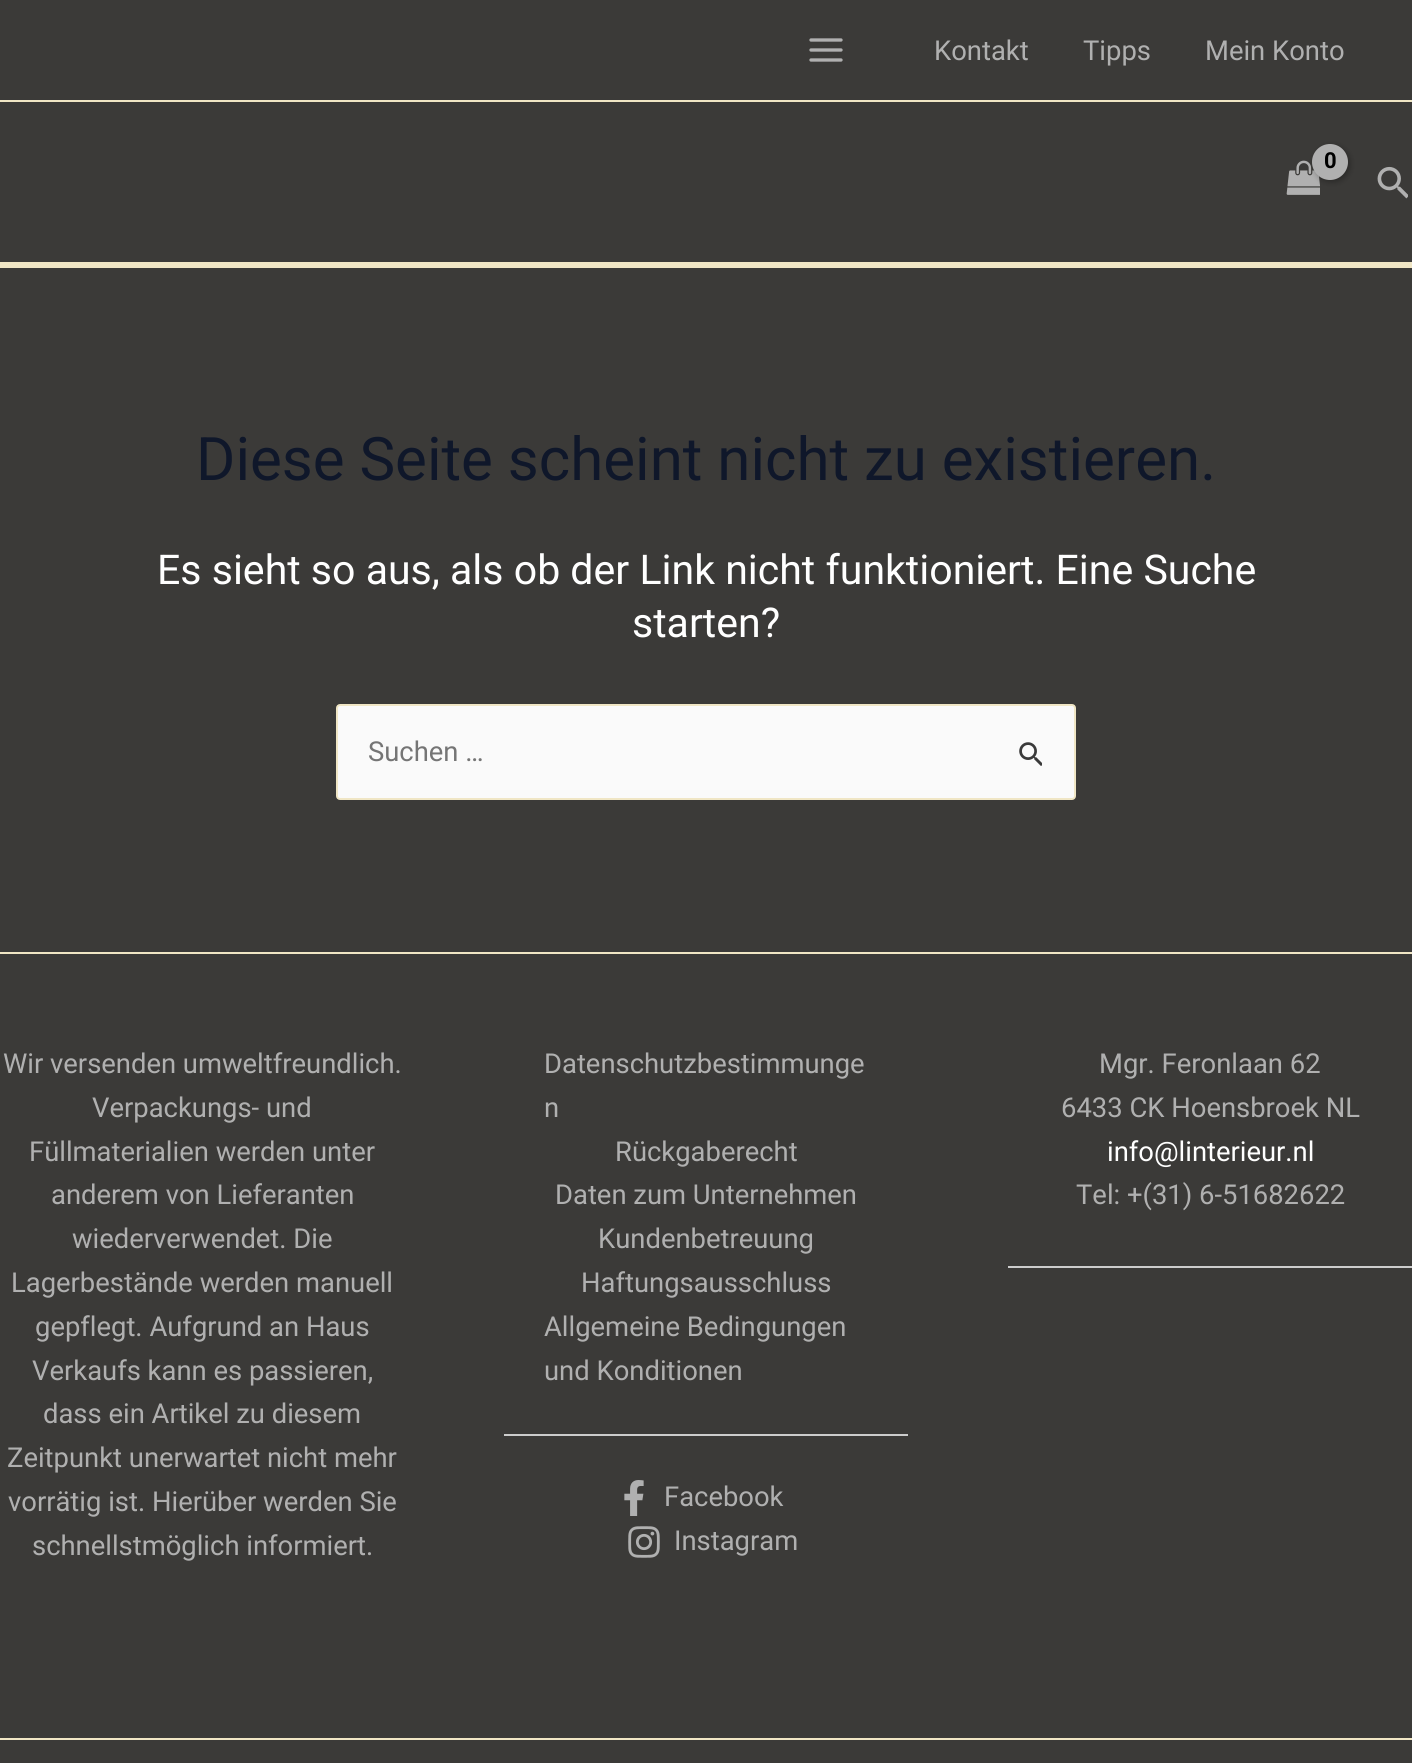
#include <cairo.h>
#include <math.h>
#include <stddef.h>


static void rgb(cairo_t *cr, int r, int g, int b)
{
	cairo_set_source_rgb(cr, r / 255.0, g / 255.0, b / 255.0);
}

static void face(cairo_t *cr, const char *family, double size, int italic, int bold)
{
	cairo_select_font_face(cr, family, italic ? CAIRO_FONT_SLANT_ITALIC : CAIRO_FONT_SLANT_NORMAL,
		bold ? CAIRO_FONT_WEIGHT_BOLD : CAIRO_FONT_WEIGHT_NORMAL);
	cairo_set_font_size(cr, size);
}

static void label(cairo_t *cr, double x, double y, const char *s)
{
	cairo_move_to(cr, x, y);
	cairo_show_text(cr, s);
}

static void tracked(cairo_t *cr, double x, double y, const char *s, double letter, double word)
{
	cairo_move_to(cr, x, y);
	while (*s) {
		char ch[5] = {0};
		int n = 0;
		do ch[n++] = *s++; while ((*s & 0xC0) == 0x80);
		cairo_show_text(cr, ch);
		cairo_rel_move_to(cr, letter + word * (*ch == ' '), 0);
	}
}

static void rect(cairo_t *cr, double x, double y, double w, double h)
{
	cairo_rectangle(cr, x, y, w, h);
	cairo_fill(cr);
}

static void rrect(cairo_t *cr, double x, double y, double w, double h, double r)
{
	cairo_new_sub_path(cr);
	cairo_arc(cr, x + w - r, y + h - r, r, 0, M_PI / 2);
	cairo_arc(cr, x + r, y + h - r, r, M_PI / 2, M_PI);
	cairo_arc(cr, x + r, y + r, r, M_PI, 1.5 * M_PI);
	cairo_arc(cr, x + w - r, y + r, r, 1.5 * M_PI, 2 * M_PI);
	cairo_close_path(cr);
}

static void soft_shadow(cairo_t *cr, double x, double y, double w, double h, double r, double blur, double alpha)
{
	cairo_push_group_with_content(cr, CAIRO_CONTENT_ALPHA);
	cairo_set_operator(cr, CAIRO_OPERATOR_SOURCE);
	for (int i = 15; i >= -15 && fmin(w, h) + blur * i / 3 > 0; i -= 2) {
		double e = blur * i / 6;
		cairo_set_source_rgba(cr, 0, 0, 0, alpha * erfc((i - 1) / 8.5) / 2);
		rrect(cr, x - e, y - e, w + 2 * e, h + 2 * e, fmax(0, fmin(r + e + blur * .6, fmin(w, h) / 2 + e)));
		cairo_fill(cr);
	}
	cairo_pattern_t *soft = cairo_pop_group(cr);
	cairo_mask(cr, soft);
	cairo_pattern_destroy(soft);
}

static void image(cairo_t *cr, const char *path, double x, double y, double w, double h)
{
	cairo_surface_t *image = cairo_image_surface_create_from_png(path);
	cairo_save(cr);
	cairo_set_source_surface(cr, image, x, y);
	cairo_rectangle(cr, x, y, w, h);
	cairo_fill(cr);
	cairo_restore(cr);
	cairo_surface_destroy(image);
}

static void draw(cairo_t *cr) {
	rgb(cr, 59, 58, 56);
	cairo_paint(cr);
	rgb(cr, 240, 230, 197);
	rect(cr, 0, 100, 1412, 2);
	image(cr, "image0.png", 809, 38, 34, 24);
	face(cr, "Roboto", 27.4, 0, 0);
	rgb(cr, 176, 176, 176);
	label(cr, 934, 60, "Kontakt");
	label(cr, 1083, 60, "Tipps");
	label(cr, 1205, 60, "Mein Konto");
	rgb(cr, 240, 230, 197);
	rect(cr, 0, 262, 1412, 6);
	image(cr, "image1.png", 1286, 160, 34, 35);
	rgb(cr, 0, 0, 0);
	soft_shadow(cr, 1314, 146, 36, 36, 18, 3, 0.3);
	rgb(cr, 176, 176, 176);
	cairo_arc(cr, 1330, 162, 18, 0, 2 * M_PI);
	cairo_fill(cr);
	face(cr, "Roboto", 22, 0, 1);
	rgb(cr, 0, 0, 0);
	tracked(cr, 1324, 168, "0", -1, 0);
	image(cr, "image2.png", 1377, 166, 31, 33);
	face(cr, "Roboto", 60, 0, 0);
	rgb(cr, 15, 23, 42);
	label(cr, 196, 480, "Diese Seite scheint nicht zu existieren.");
	face(cr, "Roboto", 41.05, 0, 0);
	rgb(cr, 255, 255, 255);
	label(cr, 157, 584, "Es sieht so aus, als ob der Link nicht funktioniert. Eine Suche");
	label(cr, 632, 637, "starten?");
	rgb(cr, 250, 250, 250);
	rrect(cr, 337, 705, 738, 94, 3);
	cairo_fill_preserve(cr);
	rgb(cr, 240, 230, 197);
	cairo_stroke(cr);
	face(cr, "Roboto", 27.4, 0, 0);
	rgb(cr, 117, 117, 117);
	label(cr, 368, 761, "Suchen …");
	image(cr, "image3.png", 1019, 742, 23, 24);
	rgb(cr, 240, 230, 197);
	rect(cr, 0, 952, 1412, 2);
	rgb(cr, 176, 176, 176);
	label(cr, 3, 1073, "Wir versenden umweltfreundlich.");
	label(cr, 92, 1117, "Verpackungs- und");
	label(cr, 29, 1161, "Füllmaterialien werden unter");
	label(cr, 51, 1204, "anderem von Lieferanten");
	label(cr, 72, 1248, "wiederverwendet. Die");
	label(cr, 11, 1292, "Lagerbestände werden manuell");
	label(cr, 35, 1336, "gepflegt. Aufgrund an Haus");
	label(cr, 32, 1380, "Verkaufs kann es passieren,");
	label(cr, 43, 1423, "dass ein Artikel zu diesem");
	label(cr, 7, 1467, "Zeitpunkt unerwartet nicht mehr");
	label(cr, 8, 1511, "vorrätig ist. Hierüber werden Sie");
	label(cr, 32, 1555, "schnellstmöglich informiert.");
	label(cr, 544, 1073, "Datenschutzbestimmunge");
	label(cr, 544, 1117, "n");
	label(cr, 615, 1161, "Rückgaberecht");
	label(cr, 555, 1204, "Daten zum Unternehmen");
	label(cr, 598, 1248, "Kundenbetreuung");
	label(cr, 581, 1292, "Haftungsausschluss");
	label(cr, 544, 1336, "Allgemeine Bedingungen");
	label(cr, 544, 1380, "und Konditionen");
	rgb(cr, 204, 204, 204);
	rect(cr, 504, 1434, 404, 2);
	image(cr, "image4.png", 624, 1480, 20, 36);
	rgb(cr, 176, 176, 176);
	label(cr, 664, 1506, "Facebook");
	image(cr, "image5.png", 628, 1526, 32, 32);
	label(cr, 674, 1550, "Instagram");
	label(cr, 1099, 1073, "Mgr. Feronlaan 62");
	label(cr, 1061, 1117, "6433 CK Hoensbroek NL");
	rgb(cr, 255, 255, 255);
	label(cr, 1107, 1161, "info@linterieur.nl");
	rgb(cr, 176, 176, 176);
	label(cr, 1076, 1204, "Tel: +(31) 6-51682622");
	rgb(cr, 204, 204, 204);
	rect(cr, 1008, 1266, 404, 2);
	rgb(cr, 240, 230, 197);
	rect(cr, 0, 1738, 1412, 2);
}

int main(void) {
	cairo_surface_t *surface = cairo_image_surface_create(CAIRO_FORMAT_RGB24, 1412, 1763);
	cairo_t *cr = cairo_create(surface);
	cairo_font_options_t *options = cairo_font_options_create();
	cairo_font_options_set_hint_metrics(options, CAIRO_HINT_METRICS_OFF);
	cairo_font_options_set_hint_style(options, CAIRO_HINT_STYLE_NONE);
	cairo_set_font_options(cr, options);
	cairo_set_miter_limit(cr, 4);
	draw(cr);
	cairo_surface_write_to_png(surface, "render.png");
	cairo_font_options_destroy(options);
	cairo_destroy(cr);
	cairo_surface_destroy(surface);
	return 0;
}
